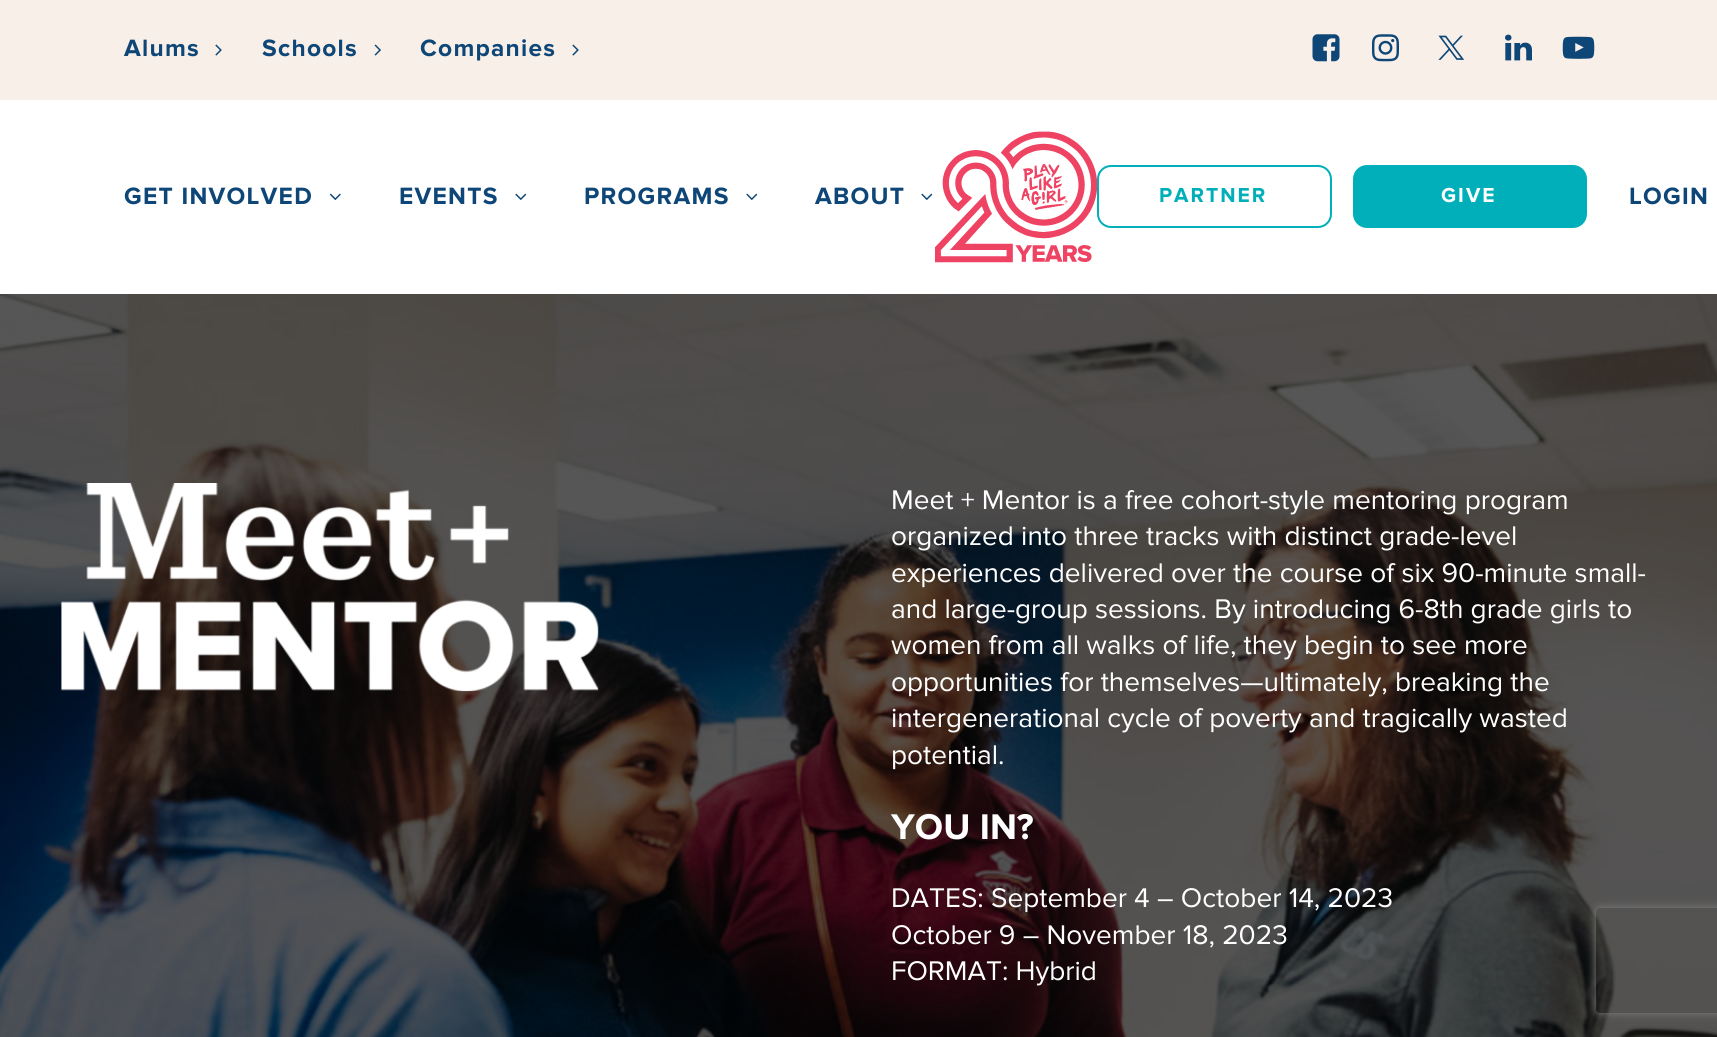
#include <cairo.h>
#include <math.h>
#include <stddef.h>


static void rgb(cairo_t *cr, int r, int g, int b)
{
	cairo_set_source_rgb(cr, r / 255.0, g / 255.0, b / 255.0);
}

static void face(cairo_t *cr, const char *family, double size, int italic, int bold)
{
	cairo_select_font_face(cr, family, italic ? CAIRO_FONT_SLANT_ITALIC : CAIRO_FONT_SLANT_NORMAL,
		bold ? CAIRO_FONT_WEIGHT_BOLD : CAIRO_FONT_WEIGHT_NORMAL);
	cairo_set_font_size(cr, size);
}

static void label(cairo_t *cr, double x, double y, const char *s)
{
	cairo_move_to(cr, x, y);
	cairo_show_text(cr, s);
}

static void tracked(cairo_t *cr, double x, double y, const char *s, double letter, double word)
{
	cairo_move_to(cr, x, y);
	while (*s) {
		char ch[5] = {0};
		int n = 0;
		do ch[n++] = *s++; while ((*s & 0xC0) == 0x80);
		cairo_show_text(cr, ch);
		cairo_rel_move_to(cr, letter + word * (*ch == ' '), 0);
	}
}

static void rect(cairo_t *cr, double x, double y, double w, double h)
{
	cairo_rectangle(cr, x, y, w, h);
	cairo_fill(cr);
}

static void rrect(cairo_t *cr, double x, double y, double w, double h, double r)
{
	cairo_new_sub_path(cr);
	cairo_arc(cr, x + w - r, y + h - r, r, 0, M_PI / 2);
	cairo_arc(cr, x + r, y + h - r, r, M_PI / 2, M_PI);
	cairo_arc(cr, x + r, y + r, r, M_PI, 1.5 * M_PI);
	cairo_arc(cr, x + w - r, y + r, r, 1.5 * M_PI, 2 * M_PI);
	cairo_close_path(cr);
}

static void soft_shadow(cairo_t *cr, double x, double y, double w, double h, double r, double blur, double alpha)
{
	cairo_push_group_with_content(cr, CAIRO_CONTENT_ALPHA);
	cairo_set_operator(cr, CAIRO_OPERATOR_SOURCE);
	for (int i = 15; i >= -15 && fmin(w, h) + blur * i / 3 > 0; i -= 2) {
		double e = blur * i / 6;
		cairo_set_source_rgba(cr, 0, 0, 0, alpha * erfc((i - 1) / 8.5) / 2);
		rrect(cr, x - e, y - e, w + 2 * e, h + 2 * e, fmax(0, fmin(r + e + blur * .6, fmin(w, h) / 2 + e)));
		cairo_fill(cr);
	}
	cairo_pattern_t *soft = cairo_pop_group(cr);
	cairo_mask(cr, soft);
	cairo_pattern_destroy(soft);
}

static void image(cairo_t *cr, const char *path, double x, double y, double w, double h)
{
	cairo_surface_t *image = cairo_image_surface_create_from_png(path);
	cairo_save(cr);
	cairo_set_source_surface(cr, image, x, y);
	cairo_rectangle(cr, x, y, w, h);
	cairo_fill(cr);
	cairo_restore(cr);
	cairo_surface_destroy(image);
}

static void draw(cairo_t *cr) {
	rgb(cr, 255, 255, 255);
	cairo_paint(cr);
	rgb(cr, 248, 239, 232);
	rect(cr, 0, 0, 1717, 100);
	face(cr, "Proxima Nova", 24.5, 0, 1);
	rgb(cr, 14, 71, 119);
	tracked(cr, 124, 56, "Alums", 1.25, 0);
	image(cr, "image0.png", 215, 44, 7, 12);
	tracked(cr, 262, 56, "Schools", 1.25, 0);
	image(cr, "image1.png", 374, 44, 7, 12);
	tracked(cr, 420, 56, "Companies", 1.25, 0);
	image(cr, "image0.png", 572, 44, 7, 12);
	image(cr, "image2.png", 1312, 34, 28, 28);
	image(cr, "image3.png", 1372, 34, 27, 28);
	image(cr, "image4.png", 1438, 35, 27, 25);
	image(cr, "image5.png", 1505, 34, 27, 27);
	image(cr, "image6.png", 1562, 36, 33, 23);
	tracked(cr, 124, 204, "GET INVOLVED", 1.25, 0);
	image(cr, "image7.png", 329, 193, 12, 7);
	tracked(cr, 399, 204, "EVENTS", 1.25, 0);
	image(cr, "image8.png", 515, 193, 12, 7);
	tracked(cr, 584, 204, "PROGRAMS", 1.25, 0);
	image(cr, "image8.png", 746, 193, 12, 7);
	tracked(cr, 815, 204, "ABOUT", 1.25, 0);
	image(cr, "image8.png", 921, 193, 12, 7);
	image(cr, "image9.png", 935, 131, 162, 132);
	rrect(cr, 1098, 166, 233, 61, 13);
	rgb(cr, 0, 175, 185);
	cairo_stroke(cr);
	face(cr, "Proxima Nova", 21, 0, 1);
	tracked(cr, 1159, 202, "PARTNER", 2, 0);
	rrect(cr, 1354, 166, 232, 61, 13);
	cairo_fill_preserve(cr);
	cairo_stroke(cr);
	rgb(cr, 255, 255, 255);
	tracked(cr, 1441, 202, "GIVE", 2, 0);
	face(cr, "Proxima Nova", 24.5, 0, 1);
	rgb(cr, 14, 71, 119);
	tracked(cr, 1629, 204, "LOGIN", 1.25, 0);
	image(cr, "image10.png", 0, 294, 1717, 743);
	image(cr, "image11.png", 61, 483, 538, 209);
	face(cr, "Proxima Nova", 28, 0, 0);
	rgb(cr, 255, 255, 255);
	label(cr, 891, 509, "Meet + Mentor is a free cohort-style mentoring program");
	label(cr, 891, 545, "organized into three tracks with distinct grade-level");
	label(cr, 891, 582, "experiences delivered over the course of six 90-minute small-");
	label(cr, 891, 618, "and large-group sessions. By introducing 6-8th grade girls to");
	label(cr, 891, 654, "women from all walks of life, they begin to see more");
	label(cr, 891, 691, "opportunities for themselves—ultimately, breaking the");
	label(cr, 891, 727, "intergenerational cycle of poverty and tragically wasted");
	label(cr, 891, 764, "potential.");
	face(cr, "Proxima Nova", 37, 0, 1);
	label(cr, 891, 839, "YOU IN?");
	face(cr, "Proxima Nova", 28, 0, 0);
	label(cr, 891, 907, "DATES: September 4 – October 14, 2023");
	label(cr, 891, 944, "October 9 – November 18, 2023");
	label(cr, 891, 980, "FORMAT: Hybrid");
	cairo_save(cr);
	cairo_set_fill_rule(cr, CAIRO_FILL_RULE_EVEN_ODD);
	cairo_new_path(cr);
	cairo_move_to(cr, 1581, 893);
	cairo_line_to(cr, 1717, 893);
	cairo_line_to(cr, 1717, 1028);
	cairo_line_to(cr, 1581, 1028);
	cairo_close_path(cr);
	cairo_move_to(cr, 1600, 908);
	cairo_line_to(cr, 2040, 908);
	cairo_curve_to(cr, 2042, 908, 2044, 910, 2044, 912);
	cairo_line_to(cr, 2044, 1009);
	cairo_curve_to(cr, 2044, 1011, 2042, 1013, 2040, 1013);
	cairo_line_to(cr, 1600, 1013);
	cairo_curve_to(cr, 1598, 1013, 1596, 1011, 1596, 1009);
	cairo_line_to(cr, 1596, 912);
	cairo_curve_to(cr, 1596, 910, 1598, 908, 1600, 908);
	cairo_close_path(cr);
	cairo_clip(cr);
	rgb(cr, 128, 128, 128);
	soft_shadow(cr, 1596, 908, 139, 105, 4, 4.5, 1);
	cairo_restore(cr);
}

int main(void) {
	cairo_surface_t *surface = cairo_image_surface_create(CAIRO_FORMAT_RGB24, 1717, 1037);
	cairo_t *cr = cairo_create(surface);
	cairo_font_options_t *options = cairo_font_options_create();
	cairo_font_options_set_hint_metrics(options, CAIRO_HINT_METRICS_OFF);
	cairo_font_options_set_hint_style(options, CAIRO_HINT_STYLE_NONE);
	cairo_set_font_options(cr, options);
	cairo_set_miter_limit(cr, 4);
	draw(cr);
	cairo_surface_write_to_png(surface, "render.png");
	cairo_font_options_destroy(options);
	cairo_destroy(cr);
	cairo_surface_destroy(surface);
	return 0;
}
